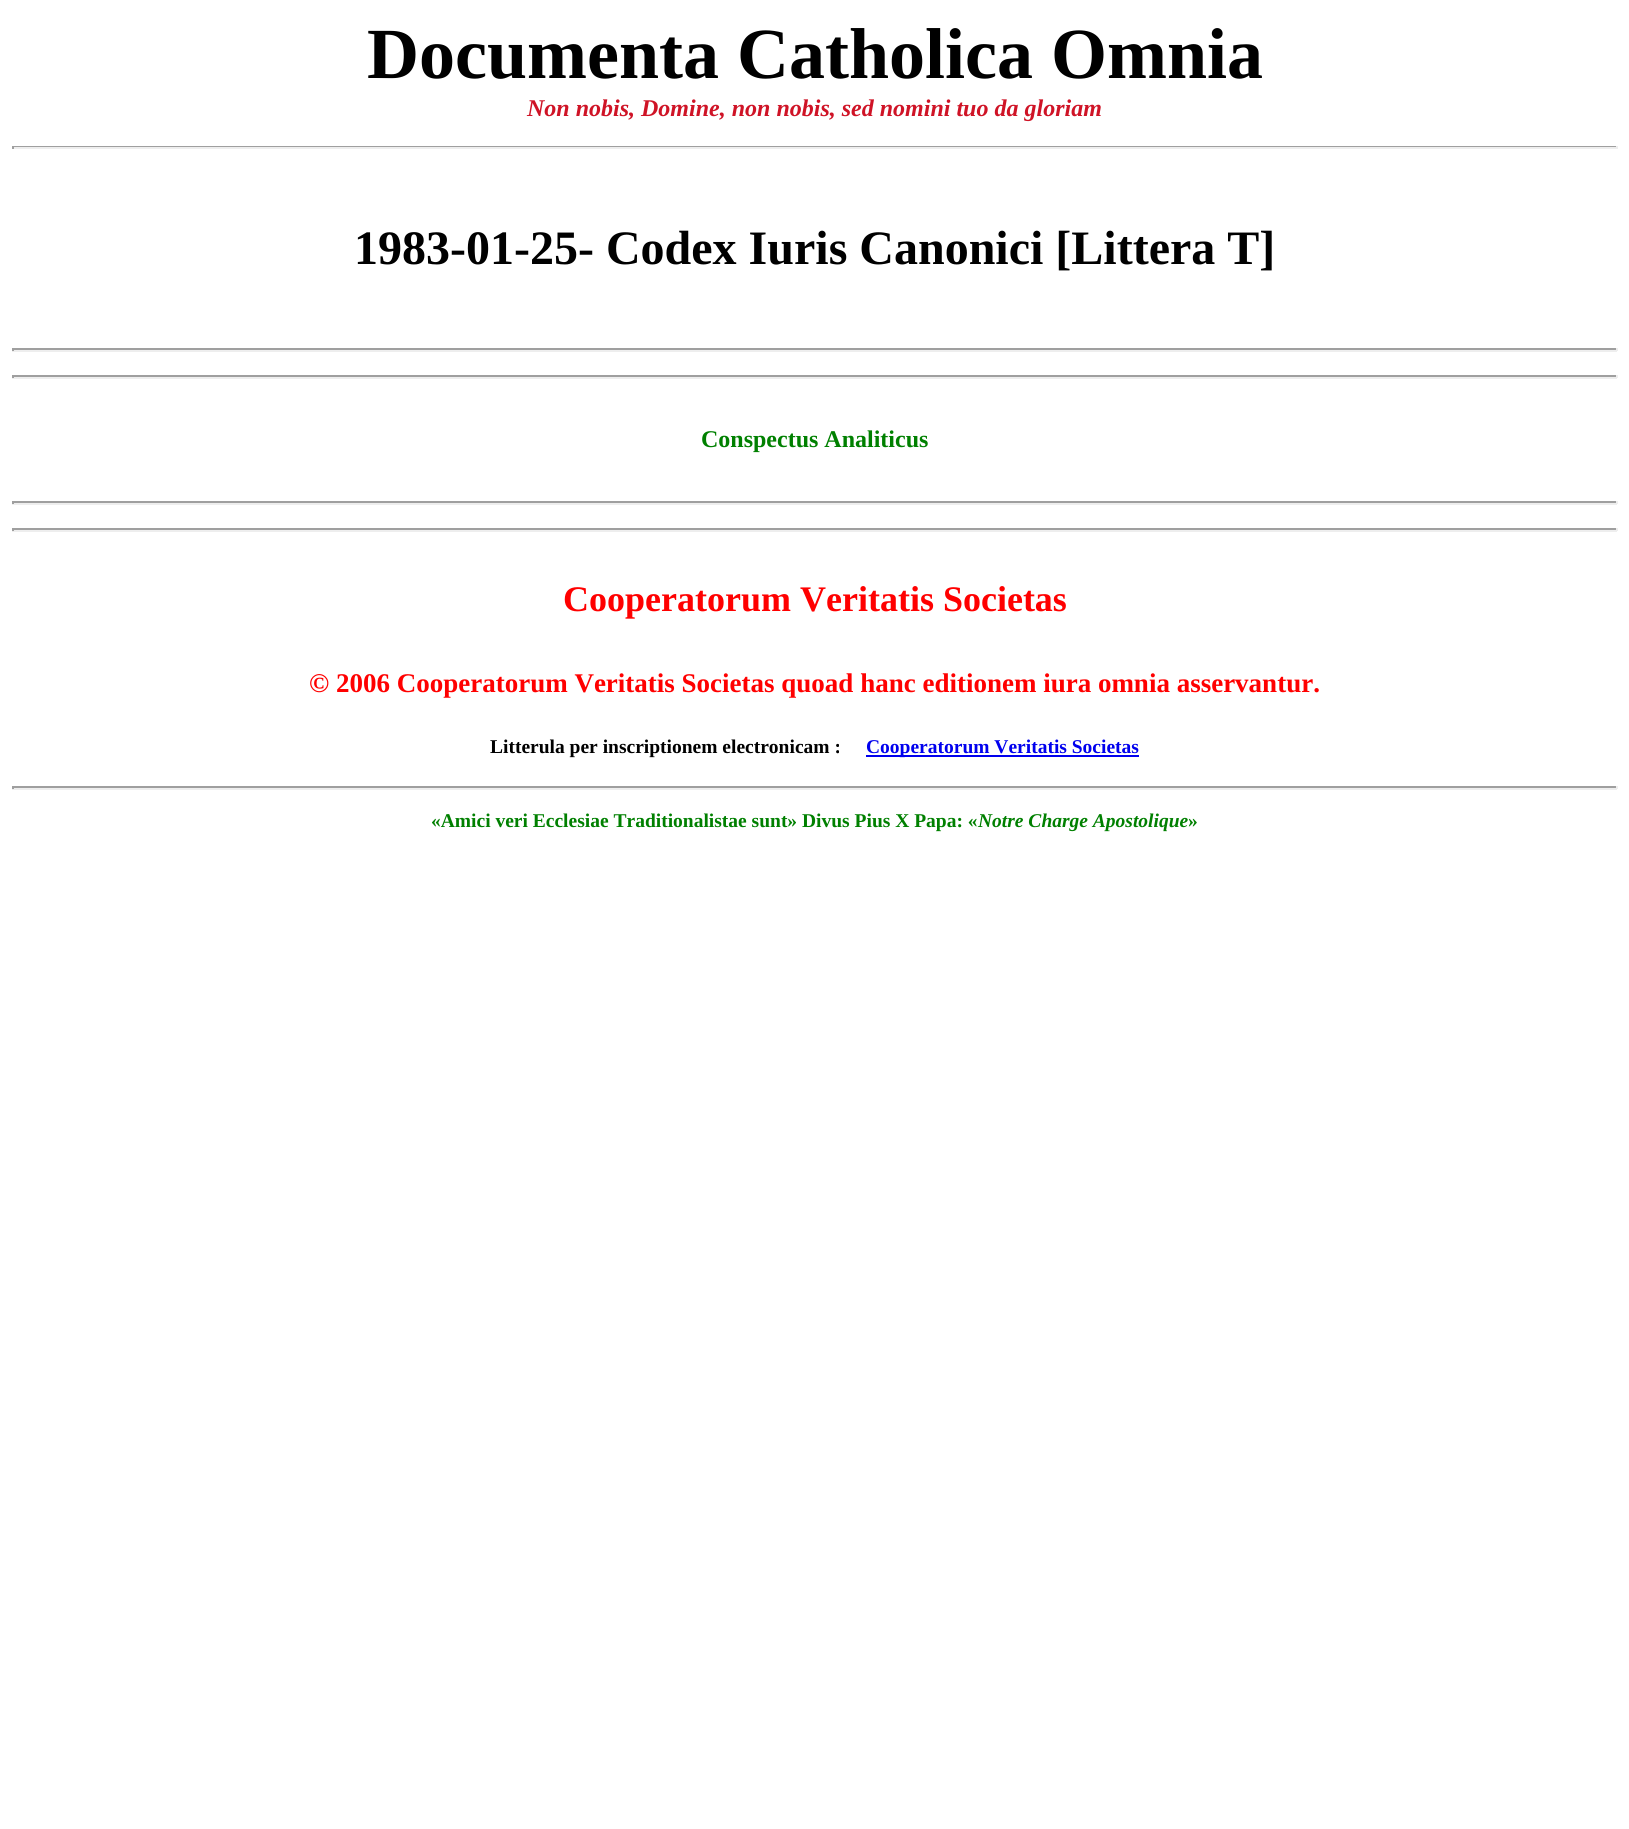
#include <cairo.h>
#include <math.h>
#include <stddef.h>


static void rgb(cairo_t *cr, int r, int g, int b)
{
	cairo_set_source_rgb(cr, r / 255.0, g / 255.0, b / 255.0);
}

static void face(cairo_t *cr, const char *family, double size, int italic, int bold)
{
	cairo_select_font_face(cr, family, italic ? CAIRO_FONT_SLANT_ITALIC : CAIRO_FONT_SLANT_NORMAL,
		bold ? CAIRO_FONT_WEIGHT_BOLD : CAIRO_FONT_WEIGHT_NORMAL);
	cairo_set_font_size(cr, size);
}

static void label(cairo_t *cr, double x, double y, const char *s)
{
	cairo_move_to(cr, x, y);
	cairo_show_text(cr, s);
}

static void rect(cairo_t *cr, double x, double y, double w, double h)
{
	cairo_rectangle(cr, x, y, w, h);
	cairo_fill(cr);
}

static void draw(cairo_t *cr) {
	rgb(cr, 255, 255, 255);
	cairo_paint(cr);
	face(cr, "Liberation Serif", 72, 0, 1);
	rgb(cr, 0, 0, 0);
	label(cr, 367, 78, "Documenta Catholica Omnia");
	face(cr, "Liberation Serif", 24, 1, 1);
	rgb(cr, 207, 19, 38);
	label(cr, 527, 116, "Non nobis, Domine, non nobis, sed nomini tuo da gloriam");
	rgb(cr, 159, 159, 159);
	rect(cr, 12, 146, 1605, 1);
	rgb(cr, 238, 238, 238);
	rect(cr, 1616, 146, 2, 3);
	rect(cr, 12, 147, 1605, 2);
	rgb(cr, 159, 159, 159);
	rect(cr, 12, 146, 2, 3);
	face(cr, "Liberation Serif", 48, 0, 1);
	rgb(cr, 0, 0, 0);
	label(cr, 354, 264, "1983-01-25- Codex Iuris Canonici [Littera T]");
	rgb(cr, 159, 159, 159);
	rect(cr, 12, 348, 1605, 2);
	rgb(cr, 238, 238, 238);
	rect(cr, 1616, 348, 2, 3);
	rect(cr, 12, 350, 1605, 2);
	rgb(cr, 159, 159, 159);
	rect(cr, 12, 348, 2, 3);
	rect(cr, 12, 375, 1605, 2);
	rgb(cr, 238, 238, 238);
	rect(cr, 1616, 375, 2, 3);
	rect(cr, 12, 377, 1605, 2);
	rgb(cr, 159, 159, 159);
	rect(cr, 12, 375, 2, 3);
	face(cr, "Liberation Serif", 24, 0, 1);
	rgb(cr, 0, 128, 0);
	label(cr, 701, 447, "Conspectus Analiticus");
	rgb(cr, 159, 159, 159);
	rect(cr, 12, 501, 1605, 2);
	rgb(cr, 238, 238, 238);
	rect(cr, 1616, 501, 2, 3);
	rect(cr, 12, 503, 1605, 2);
	rgb(cr, 159, 159, 159);
	rect(cr, 12, 501, 2, 3);
	rect(cr, 12, 528, 1605, 2);
	rgb(cr, 238, 238, 238);
	rect(cr, 1616, 528, 2, 3);
	rect(cr, 12, 530, 1605, 2);
	rgb(cr, 159, 159, 159);
	rect(cr, 12, 528, 2, 3);
	face(cr, "Liberation Serif", 36, 0, 1);
	rgb(cr, 255, 0, 0);
	label(cr, 563, 611, "Cooperatorum Veritatis Societas");
	face(cr, "Liberation Serif", 27, 0, 1);
	label(cr, 309, 692, "© 2006 Cooperatorum Veritatis Societas quoad hanc editionem iura omnia asservantur.");
	face(cr, "Liberation Serif", 19.5, 0, 1);
	rgb(cr, 0, 0, 0);
	label(cr, 490, 753, "Litterula per inscriptionem electronicam :");
	rgb(cr, 0, 0, 238);
	rect(cr, 866, 755, 273, 2);
	label(cr, 866, 753, "Cooperatorum Veritatis Societas");
	rgb(cr, 159, 159, 159);
	rect(cr, 12, 786, 1605, 2);
	rgb(cr, 238, 238, 238);
	rect(cr, 1616, 786, 2, 3);
	rect(cr, 12, 788, 1605, 2);
	rgb(cr, 159, 159, 159);
	rect(cr, 12, 786, 2, 3);
	rgb(cr, 0, 128, 0);
	label(cr, 431, 827, "«Amici veri Ecclesiae Traditionalistae sunt» Divus Pius X Papa: «");
	face(cr, "Liberation Serif", 19.5, 1, 1);
	label(cr, 978, 827, "Notre Charge Apostolique");
	face(cr, "Liberation Serif", 19.5, 0, 1);
	label(cr, 1188, 827, "»");
}

int main(void) {
	cairo_surface_t *surface = cairo_image_surface_create(CAIRO_FORMAT_RGB24, 1629, 1829);
	cairo_t *cr = cairo_create(surface);
	cairo_font_options_t *options = cairo_font_options_create();
	cairo_font_options_set_hint_metrics(options, CAIRO_HINT_METRICS_OFF);
	cairo_font_options_set_hint_style(options, CAIRO_HINT_STYLE_NONE);
	cairo_set_font_options(cr, options);
	cairo_set_miter_limit(cr, 4);
	draw(cr);
	cairo_surface_write_to_png(surface, "render.png");
	cairo_font_options_destroy(options);
	cairo_destroy(cr);
	cairo_surface_destroy(surface);
	return 0;
}
